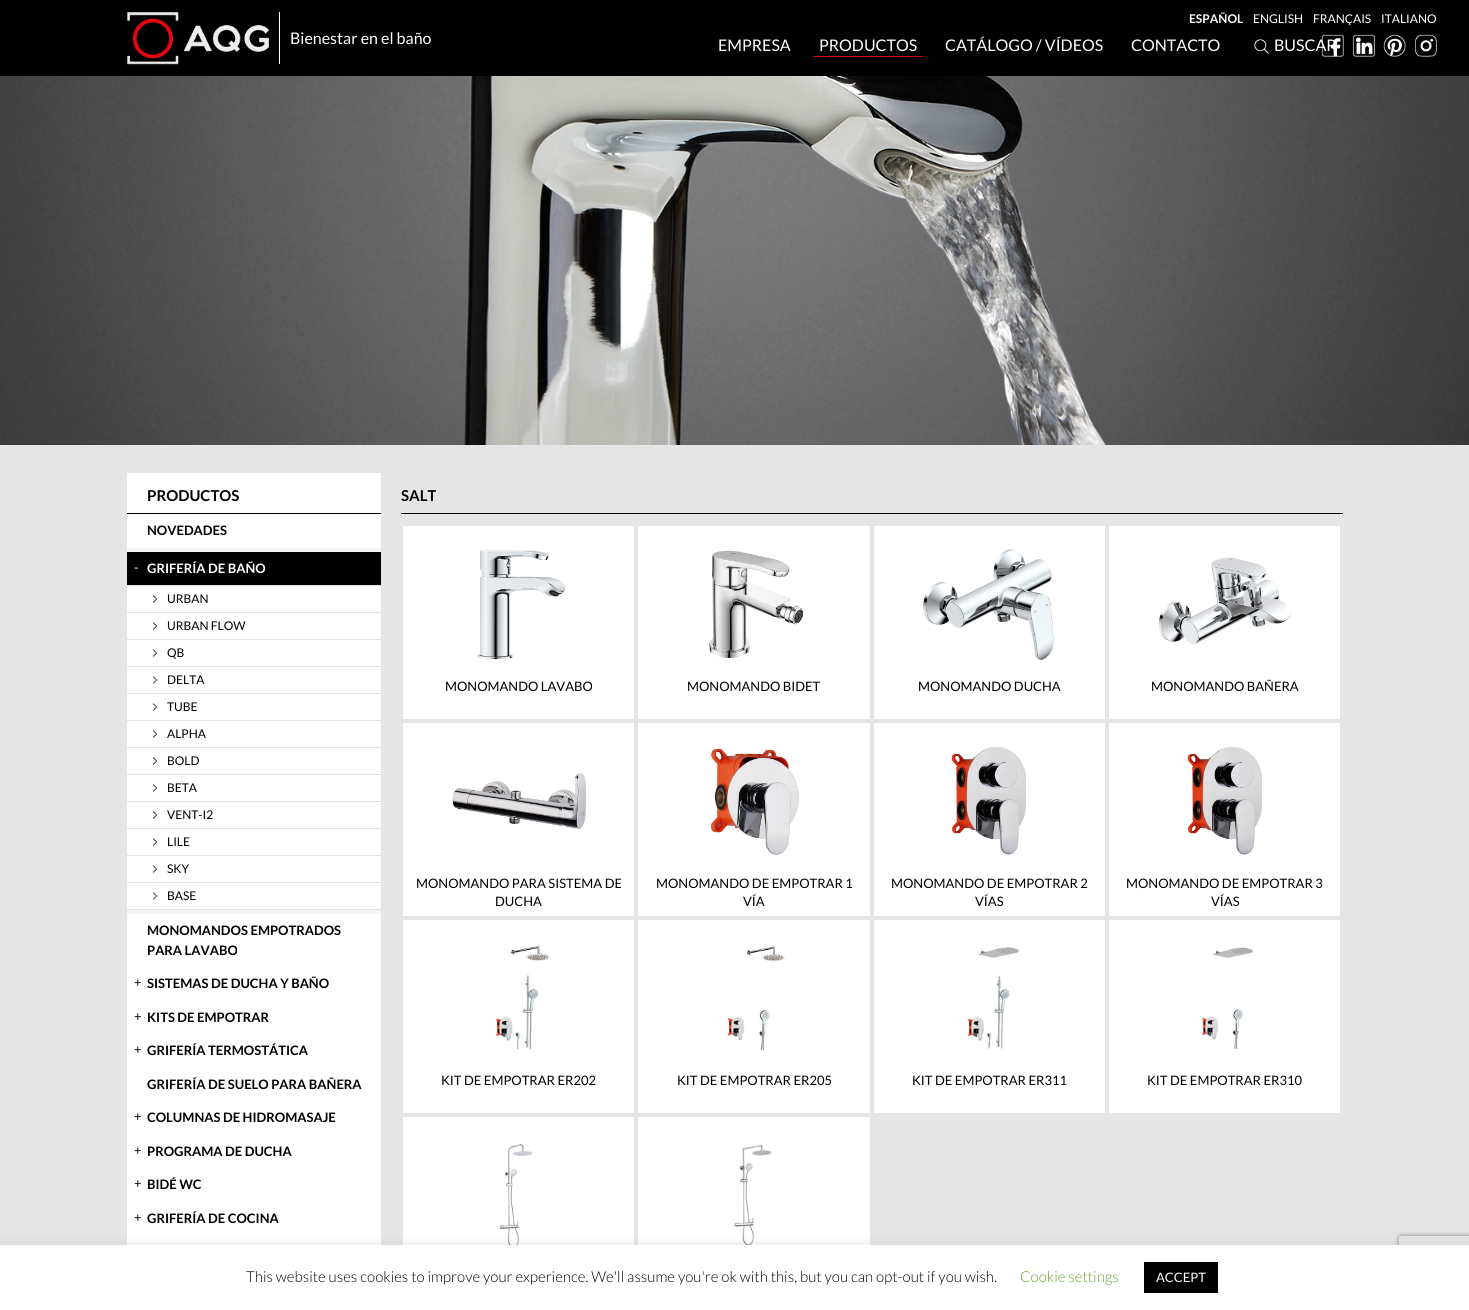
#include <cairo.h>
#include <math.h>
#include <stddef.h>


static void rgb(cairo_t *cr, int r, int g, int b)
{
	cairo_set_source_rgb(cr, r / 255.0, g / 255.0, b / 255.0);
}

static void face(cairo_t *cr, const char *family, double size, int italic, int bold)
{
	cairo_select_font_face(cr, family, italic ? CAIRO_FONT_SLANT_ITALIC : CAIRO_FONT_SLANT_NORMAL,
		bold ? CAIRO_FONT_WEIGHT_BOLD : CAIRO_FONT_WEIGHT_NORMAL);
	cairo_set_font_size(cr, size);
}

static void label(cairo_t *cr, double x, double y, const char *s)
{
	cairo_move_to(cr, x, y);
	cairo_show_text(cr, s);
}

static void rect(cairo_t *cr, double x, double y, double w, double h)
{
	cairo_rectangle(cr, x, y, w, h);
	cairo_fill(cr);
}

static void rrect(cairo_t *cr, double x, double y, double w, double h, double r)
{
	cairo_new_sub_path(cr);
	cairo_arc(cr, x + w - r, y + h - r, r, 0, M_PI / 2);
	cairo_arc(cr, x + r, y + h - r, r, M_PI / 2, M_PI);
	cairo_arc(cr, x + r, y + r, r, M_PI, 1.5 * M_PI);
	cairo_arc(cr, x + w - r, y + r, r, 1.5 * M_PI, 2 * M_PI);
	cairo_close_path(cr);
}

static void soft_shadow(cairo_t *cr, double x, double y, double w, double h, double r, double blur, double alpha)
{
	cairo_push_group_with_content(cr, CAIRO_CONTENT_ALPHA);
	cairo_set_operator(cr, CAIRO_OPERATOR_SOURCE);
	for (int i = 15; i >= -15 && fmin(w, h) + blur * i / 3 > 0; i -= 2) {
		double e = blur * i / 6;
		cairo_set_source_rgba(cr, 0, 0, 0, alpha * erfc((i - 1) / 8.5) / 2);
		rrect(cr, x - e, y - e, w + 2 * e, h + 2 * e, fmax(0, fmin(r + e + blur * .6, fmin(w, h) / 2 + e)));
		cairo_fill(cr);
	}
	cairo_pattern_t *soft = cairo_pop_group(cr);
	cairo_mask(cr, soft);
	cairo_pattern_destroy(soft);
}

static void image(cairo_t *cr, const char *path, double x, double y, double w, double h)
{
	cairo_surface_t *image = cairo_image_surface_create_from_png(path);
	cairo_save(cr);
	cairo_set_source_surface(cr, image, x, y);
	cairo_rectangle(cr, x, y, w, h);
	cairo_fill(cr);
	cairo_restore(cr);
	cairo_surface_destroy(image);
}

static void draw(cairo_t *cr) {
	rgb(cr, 229, 229, 229);
	cairo_paint(cr);
	rgb(cr, 0, 0, 0);
	rect(cr, 0, 0, 1469, 76);
	face(cr, "Lato", 12, 0, 1);
	rgb(cr, 255, 255, 255);
	label(cr, 1189, 23, "ESPAÑOL");
	face(cr, "Lato", 12, 0, 0);
	label(cr, 1253, 23, "ENGLISH");
	label(cr, 1313, 23, "FRANÇAIS");
	label(cr, 1381, 23, "ITALIANO");
	image(cr, "image0.png", 126, 12, 143, 53);
	rect(cr, 279, 12, 1, 52);
	face(cr, "Lato", 16, 0, 0);
	label(cr, 290, 44, "Bienestar en el baño");
	label(cr, 718, 51, "EMPRESA");
	label(cr, 819, 51, "PRODUCTOS");
	rgb(cr, 205, 10, 10);
	rect(cr, 813, 56, 110, 1);
	rgb(cr, 255, 255, 255);
	label(cr, 945, 51, "CATÁLOGO / VÍDEOS");
	label(cr, 1131, 51, "CONTACTO");
	image(cr, "image1.png", 1254, 39, 15, 15);
	label(cr, 1274, 51, "BUSCAR");
	image(cr, "image2.png", 1321, 34, 23, 23);
	image(cr, "image3.png", 1352, 34, 23, 23);
	image(cr, "image4.png", 1383, 34, 23, 23);
	image(cr, "image5.png", 1414, 34, 23, 23);
	image(cr, "image6.png", 0, 76, 1469, 369);
	rect(cr, 127, 473, 254, 40);
	rgb(cr, 0, 0, 0);
	rect(cr, 127, 513, 254, 1);
	face(cr, "Lato", 15, 0, 1);
	label(cr, 147, 501, "PRODUCTOS");
	rgb(cr, 255, 255, 255);
	rect(cr, 127, 514, 254, 731);
	face(cr, "Lato", 13, 0, 1);
	rgb(cr, 0, 0, 0);
	label(cr, 147, 535, "NOVEDADES");
	rgb(cr, 245, 245, 245);
	rect(cr, 127, 548, 254, 4);
	rect(cr, 127, 910, 254, 4);
	rgb(cr, 0, 0, 0);
	rect(cr, 127, 552, 254, 33);
	face(cr, "Lato", 13, 0, 0);
	rgb(cr, 255, 255, 255);
	label(cr, 134, 572, "-");
	face(cr, "Lato", 13, 0, 1);
	label(cr, 147, 573, "GRIFERÍA DE BAÑO");
	image(cr, "image7.png", 153, 595, 4, 8);
	rgb(cr, 226, 226, 226);
	rect(cr, 127, 585, 254, 1);
	rect(cr, 127, 612, 254, 1);
	face(cr, "Lato", 12, 0, 0);
	rgb(cr, 0, 0, 0);
	label(cr, 167, 603, "URBAN");
	image(cr, "image7.png", 153, 622, 4, 8);
	rgb(cr, 226, 226, 226);
	rect(cr, 127, 639, 254, 1);
	rgb(cr, 0, 0, 0);
	label(cr, 167, 630, "URBAN FLOW");
	image(cr, "image7.png", 153, 649, 4, 8);
	rgb(cr, 226, 226, 226);
	rect(cr, 127, 666, 254, 1);
	rgb(cr, 0, 0, 0);
	label(cr, 167, 657, "QB");
	image(cr, "image7.png", 153, 676, 4, 8);
	rgb(cr, 226, 226, 226);
	rect(cr, 127, 693, 254, 1);
	rgb(cr, 0, 0, 0);
	label(cr, 167, 684, "DELTA");
	image(cr, "image7.png", 153, 703, 4, 8);
	rgb(cr, 226, 226, 226);
	rect(cr, 127, 720, 254, 1);
	rgb(cr, 0, 0, 0);
	label(cr, 167, 711, "TUBE");
	image(cr, "image7.png", 153, 730, 4, 8);
	rgb(cr, 226, 226, 226);
	rect(cr, 127, 747, 254, 1);
	rgb(cr, 0, 0, 0);
	label(cr, 167, 738, "ALPHA");
	image(cr, "image7.png", 153, 757, 4, 8);
	rgb(cr, 226, 226, 226);
	rect(cr, 127, 774, 254, 1);
	rgb(cr, 0, 0, 0);
	label(cr, 167, 765, "BOLD");
	image(cr, "image7.png", 153, 784, 4, 8);
	rgb(cr, 226, 226, 226);
	rect(cr, 127, 801, 254, 1);
	rgb(cr, 0, 0, 0);
	label(cr, 167, 792, "BETA");
	image(cr, "image7.png", 153, 811, 4, 8);
	rgb(cr, 226, 226, 226);
	rect(cr, 127, 828, 254, 1);
	rgb(cr, 0, 0, 0);
	label(cr, 167, 819, "VENT-I2");
	image(cr, "image7.png", 153, 838, 4, 8);
	rgb(cr, 226, 226, 226);
	rect(cr, 127, 855, 254, 1);
	rgb(cr, 0, 0, 0);
	label(cr, 167, 846, "LILE");
	image(cr, "image7.png", 153, 865, 4, 8);
	rgb(cr, 226, 226, 226);
	rect(cr, 127, 882, 254, 1);
	rgb(cr, 0, 0, 0);
	label(cr, 167, 873, "SKY");
	image(cr, "image7.png", 153, 892, 4, 8);
	rgb(cr, 226, 226, 226);
	rect(cr, 127, 909, 254, 1);
	rgb(cr, 0, 0, 0);
	label(cr, 167, 900, "BASE");
	face(cr, "Lato", 13, 0, 1);
	label(cr, 147, 935, "MONOMANDOS EMPOTRADOS");
	label(cr, 147, 955, "PARA LAVABO");
	face(cr, "Lato", 13, 0, 0);
	label(cr, 134, 987, "+");
	face(cr, "Lato", 13, 0, 1);
	label(cr, 147, 988, "SISTEMAS DE DUCHA Y BAÑO");
	face(cr, "Lato", 13, 0, 0);
	label(cr, 134, 1021, "+");
	face(cr, "Lato", 13, 0, 1);
	label(cr, 147, 1022, "KITS DE EMPOTRAR");
	face(cr, "Lato", 13, 0, 0);
	label(cr, 134, 1054, "+");
	face(cr, "Lato", 13, 0, 1);
	label(cr, 147, 1055, "GRIFERÍA TERMOSTÁTICA");
	label(cr, 147, 1089, "GRIFERÍA DE SUELO PARA BAÑERA");
	face(cr, "Lato", 13, 0, 0);
	label(cr, 134, 1121, "+");
	face(cr, "Lato", 13, 0, 1);
	label(cr, 147, 1122, "COLUMNAS DE HIDROMASAJE");
	face(cr, "Lato", 13, 0, 0);
	label(cr, 134, 1155, "+");
	face(cr, "Lato", 13, 0, 1);
	label(cr, 147, 1156, "PROGRAMA DE DUCHA");
	face(cr, "Lato", 13, 0, 0);
	label(cr, 134, 1188, "+");
	face(cr, "Lato", 13, 0, 1);
	label(cr, 147, 1189, "BIDÉ WC");
	face(cr, "Lato", 13, 0, 0);
	label(cr, 134, 1222, "+");
	face(cr, "Lato", 13, 0, 1);
	label(cr, 147, 1223, "GRIFERÍA DE COCINA");
	rect(cr, 401, 513, 942, 1);
	face(cr, "Lato", 15, 0, 1);
	label(cr, 401, 501, "SALT");
	rgb(cr, 255, 255, 255);
	rect(cr, 403, 526, 231, 193);
	image(cr, "image8.png", 477, 550, 89, 110);
	face(cr, "Lato", 13, 0, 0);
	rgb(cr, 0, 0, 0);
	label(cr, 445, 691, "MONOMANDO LAVABO");
	rgb(cr, 255, 255, 255);
	rect(cr, 638, 526, 232, 193);
	image(cr, "image9.png", 709, 550, 94, 108);
	rgb(cr, 0, 0, 0);
	label(cr, 687, 691, "MONOMANDO BIDET");
	rgb(cr, 255, 255, 255);
	rect(cr, 874, 526, 231, 193);
	image(cr, "image10.png", 923, 549, 131, 111);
	rgb(cr, 0, 0, 0);
	label(cr, 918, 691, "MONOMANDO DUCHA");
	rgb(cr, 255, 255, 255);
	rect(cr, 1109, 526, 231, 193);
	image(cr, "image11.png", 1158, 557, 133, 88);
	rgb(cr, 0, 0, 0);
	label(cr, 1151, 691, "MONOMANDO BAÑERA");
	rgb(cr, 255, 255, 255);
	rect(cr, 403, 723, 231, 193);
	image(cr, "image12.png", 452, 773, 135, 56);
	rgb(cr, 0, 0, 0);
	label(cr, 416, 888, "MONOMANDO PARA SISTEMA DE");
	label(cr, 495, 906, "DUCHA");
	rgb(cr, 255, 255, 255);
	rect(cr, 638, 723, 232, 193);
	image(cr, "image13.png", 711, 748, 88, 107);
	rgb(cr, 0, 0, 0);
	label(cr, 656, 888, "MONOMANDO DE EMPOTRAR 1");
	label(cr, 743, 906, "VÍA");
	rgb(cr, 255, 255, 255);
	rect(cr, 874, 723, 231, 193);
	image(cr, "image14.png", 951, 747, 75, 108);
	rgb(cr, 0, 0, 0);
	label(cr, 891, 888, "MONOMANDO DE EMPOTRAR 2");
	label(cr, 975, 906, "VÍAS");
	rgb(cr, 255, 255, 255);
	rect(cr, 1109, 723, 231, 193);
	image(cr, "image14.png", 1187, 747, 75, 108);
	rgb(cr, 0, 0, 0);
	label(cr, 1126, 888, "MONOMANDO DE EMPOTRAR 3");
	label(cr, 1211, 906, "VÍAS");
	rgb(cr, 255, 255, 255);
	rect(cr, 403, 920, 231, 193);
	image(cr, "image15.png", 496, 945, 55, 105);
	rgb(cr, 0, 0, 0);
	label(cr, 441, 1085, "KIT DE EMPOTRAR ER202");
	rgb(cr, 255, 255, 255);
	rect(cr, 638, 920, 232, 193);
	image(cr, "image16.png", 726, 946, 60, 105);
	rgb(cr, 0, 0, 0);
	label(cr, 677, 1085, "KIT DE EMPOTRAR ER205");
	rgb(cr, 255, 255, 255);
	rect(cr, 874, 920, 231, 193);
	image(cr, "image17.png", 967, 947, 52, 102);
	rgb(cr, 0, 0, 0);
	label(cr, 912, 1085, "KIT DE EMPOTRAR ER311");
	rgb(cr, 255, 255, 255);
	rect(cr, 1109, 920, 231, 193);
	image(cr, "image18.png", 1200, 947, 53, 102);
	rgb(cr, 0, 0, 0);
	label(cr, 1147, 1085, "KIT DE EMPOTRAR ER310");
	rgb(cr, 255, 255, 255);
	rect(cr, 403, 1117, 231, 128);
	image(cr, "image19.png", 499, 1144, 34, 101);
	rect(cr, 638, 1117, 232, 128);
	image(cr, "image20.png", 734, 1144, 38, 101);
	rgb(cr, 172, 171, 171);
	soft_shadow(cr, 0, 1244, 1469, 65, 0, 5, 0.3);
	cairo_save(cr);
	cairo_set_fill_rule(cr, CAIRO_FILL_RULE_EVEN_ODD);
	cairo_new_path(cr);
	cairo_move_to(cr, 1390, 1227);
	cairo_line_to(cr, 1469, 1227);
	cairo_line_to(cr, 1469, 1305);
	cairo_line_to(cr, 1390, 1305);
	cairo_close_path(cr);
	cairo_move_to(cr, 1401, 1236);
	cairo_line_to(cr, 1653, 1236);
	cairo_curve_to(cr, 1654, 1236, 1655, 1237, 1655, 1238);
	cairo_line_to(cr, 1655, 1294);
	cairo_curve_to(cr, 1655, 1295, 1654, 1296, 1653, 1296);
	cairo_line_to(cr, 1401, 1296);
	cairo_curve_to(cr, 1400, 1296, 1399, 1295, 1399, 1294);
	cairo_line_to(cr, 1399, 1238);
	cairo_curve_to(cr, 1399, 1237, 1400, 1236, 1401, 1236);
	cairo_close_path(cr);
	cairo_clip(cr);
	rgb(cr, 128, 128, 128);
	soft_shadow(cr, 1399, 1236, 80, 60, 2, 2.5, 1);
	cairo_restore(cr);
	rgb(cr, 255, 255, 255);
	rect(cr, 0, 1245, 1469, 65);
	face(cr, "Lato Light", 15, 0, 0);
	rgb(cr, 0, 0, 0);
	label(cr, 246, 1282, "This website uses cookies to improve your experience. We'll assume you're ok with this, but you can opt-out if you wish.");
	rgb(cr, 98, 163, 41);
	label(cr, 1020, 1282, "Cookie settings");
	rgb(cr, 0, 0, 0);
	rect(cr, 1144, 1262, 74, 31);
	face(cr, "Lato", 13, 0, 0);
	rgb(cr, 255, 255, 255);
	label(cr, 1156, 1282, "ACCEPT");
}

int main(void) {
	cairo_surface_t *surface = cairo_image_surface_create(CAIRO_FORMAT_RGB24, 1469, 1310);
	cairo_t *cr = cairo_create(surface);
	cairo_font_options_t *options = cairo_font_options_create();
	cairo_font_options_set_hint_metrics(options, CAIRO_HINT_METRICS_OFF);
	cairo_font_options_set_hint_style(options, CAIRO_HINT_STYLE_NONE);
	cairo_set_font_options(cr, options);
	cairo_set_miter_limit(cr, 4);
	draw(cr);
	cairo_surface_write_to_png(surface, "render.png");
	cairo_font_options_destroy(options);
	cairo_destroy(cr);
	cairo_surface_destroy(surface);
	return 0;
}
